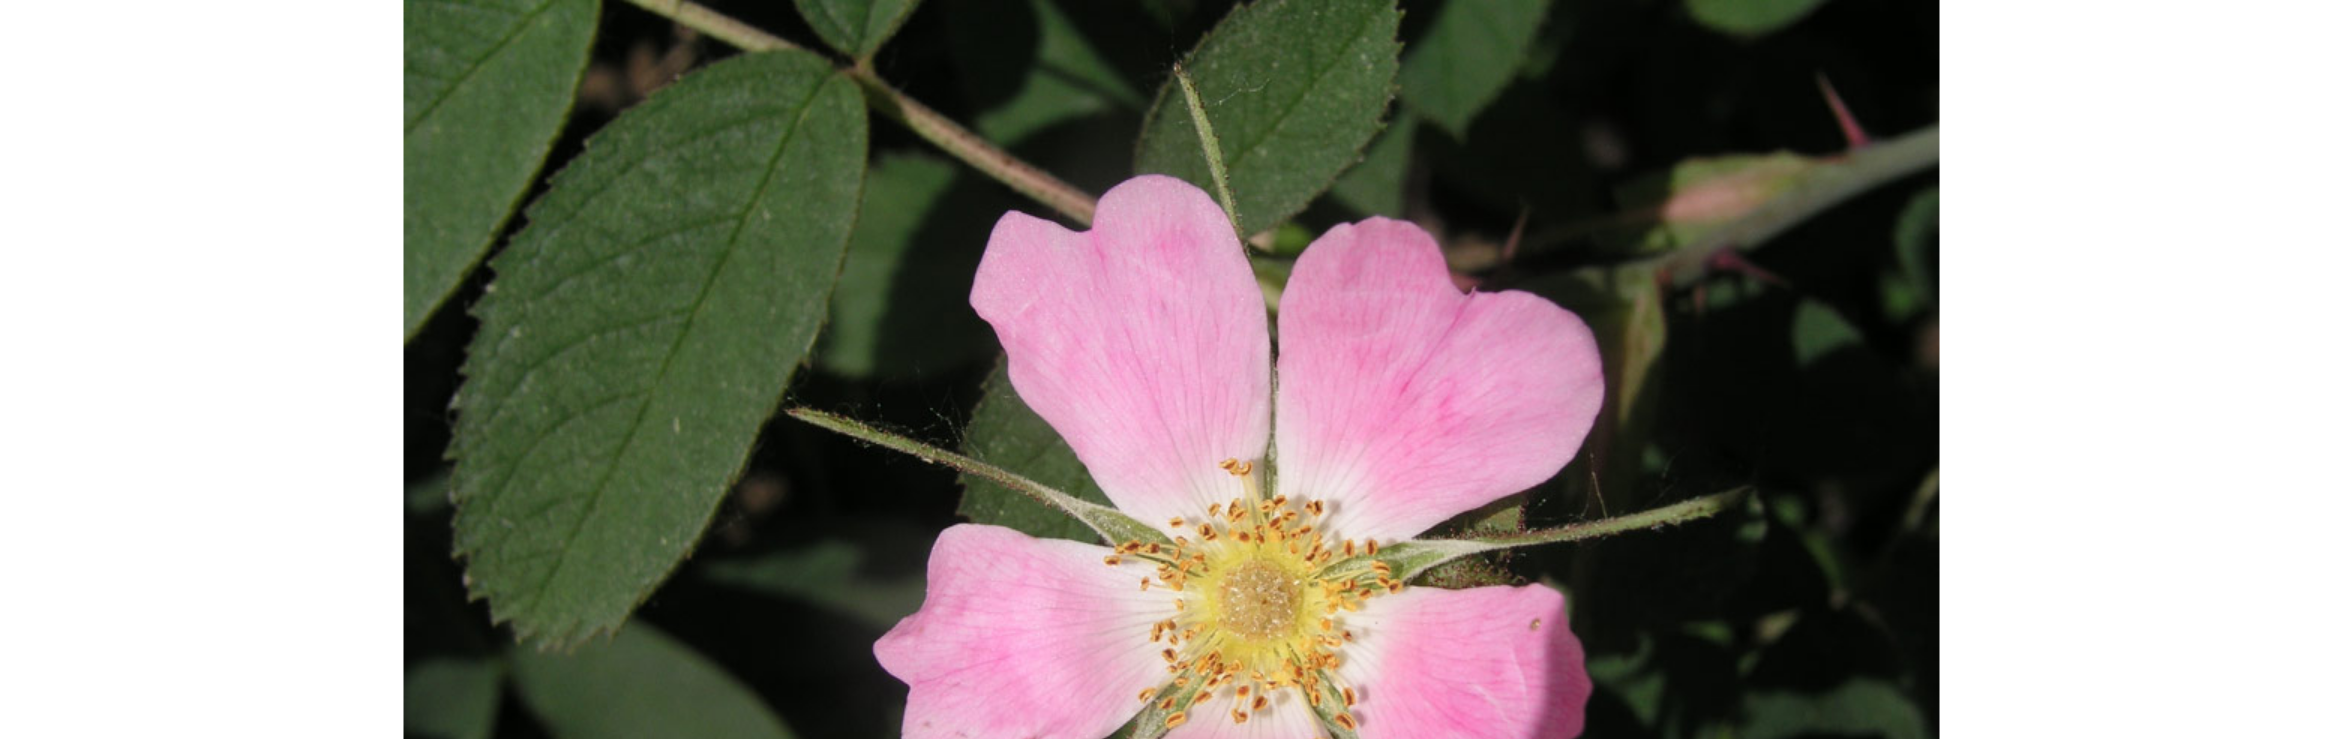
#include <cairo.h>
#include <math.h>
#include <stddef.h>


static void rgb(cairo_t *cr, int r, int g, int b)
{
	cairo_set_source_rgb(cr, r / 255.0, g / 255.0, b / 255.0);
}

static void image(cairo_t *cr, const char *path, double x, double y, double w, double h)
{
	cairo_surface_t *image = cairo_image_surface_create_from_png(path);
	cairo_save(cr);
	cairo_set_source_surface(cr, image, x, y);
	cairo_rectangle(cr, x, y, w, h);
	cairo_fill(cr);
	cairo_restore(cr);
	cairo_surface_destroy(image);
}

static void draw(cairo_t *cr) {
	rgb(cr, 255, 255, 255);
	cairo_paint(cr);
	image(cr, "image0.png", 403, 0, 1537, 739);
}

int main(void) {
	cairo_surface_t *surface = cairo_image_surface_create(CAIRO_FORMAT_RGB24, 2341, 739);
	cairo_t *cr = cairo_create(surface);
	cairo_font_options_t *options = cairo_font_options_create();
	cairo_font_options_set_hint_metrics(options, CAIRO_HINT_METRICS_OFF);
	cairo_font_options_set_hint_style(options, CAIRO_HINT_STYLE_NONE);
	cairo_set_font_options(cr, options);
	cairo_set_miter_limit(cr, 4);
	draw(cr);
	cairo_surface_write_to_png(surface, "render.png");
	cairo_font_options_destroy(options);
	cairo_destroy(cr);
	cairo_surface_destroy(surface);
	return 0;
}
